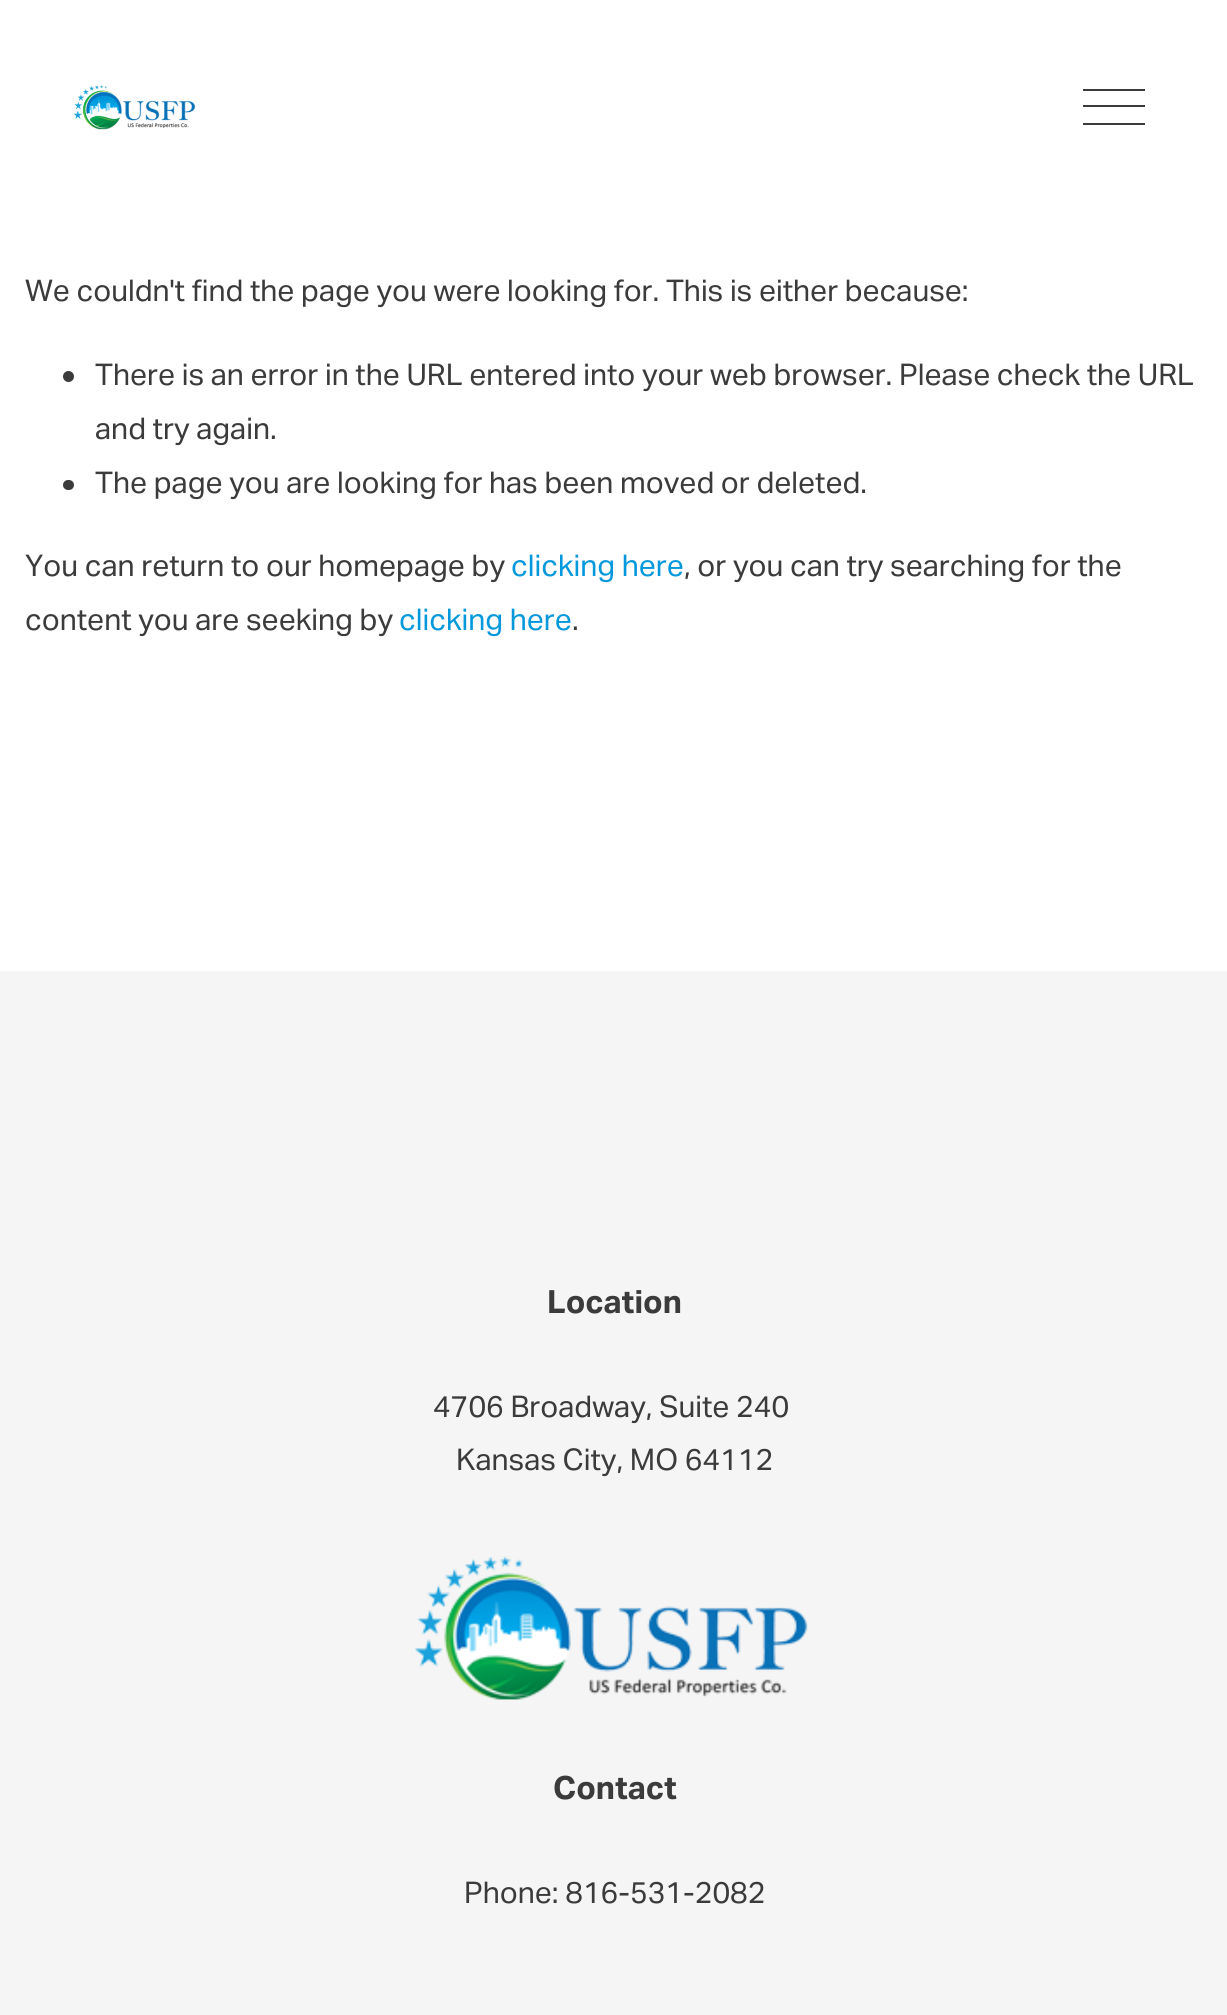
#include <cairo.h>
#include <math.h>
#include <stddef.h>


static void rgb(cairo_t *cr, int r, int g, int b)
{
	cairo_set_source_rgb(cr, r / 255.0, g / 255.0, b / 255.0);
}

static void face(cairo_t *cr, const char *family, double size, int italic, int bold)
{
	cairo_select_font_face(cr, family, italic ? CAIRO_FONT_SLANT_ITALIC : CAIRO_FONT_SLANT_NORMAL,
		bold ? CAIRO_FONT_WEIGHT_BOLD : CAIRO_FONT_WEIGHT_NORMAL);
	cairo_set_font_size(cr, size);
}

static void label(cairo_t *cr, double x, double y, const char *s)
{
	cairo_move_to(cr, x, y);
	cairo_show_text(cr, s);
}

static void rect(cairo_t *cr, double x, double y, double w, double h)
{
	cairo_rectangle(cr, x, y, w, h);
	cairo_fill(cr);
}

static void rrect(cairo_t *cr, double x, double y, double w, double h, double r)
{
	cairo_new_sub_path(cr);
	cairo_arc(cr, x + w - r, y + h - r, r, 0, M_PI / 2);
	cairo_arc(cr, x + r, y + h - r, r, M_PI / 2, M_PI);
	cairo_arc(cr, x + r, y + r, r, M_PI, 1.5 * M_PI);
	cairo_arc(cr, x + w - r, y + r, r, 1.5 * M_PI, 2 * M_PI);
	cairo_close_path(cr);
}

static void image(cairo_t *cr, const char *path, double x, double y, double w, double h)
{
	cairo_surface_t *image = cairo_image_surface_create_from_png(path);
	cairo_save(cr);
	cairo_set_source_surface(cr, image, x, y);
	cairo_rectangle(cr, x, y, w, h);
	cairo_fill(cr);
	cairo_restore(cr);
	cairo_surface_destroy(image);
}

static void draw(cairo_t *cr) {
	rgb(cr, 255, 255, 255);
	cairo_paint(cr);
	image(cr, "image0.png", 73, 85, 123, 45);
	rgb(cr, 59, 59, 59);
	rect(cr, 1083, 89, 62, 2);
	rect(cr, 1083, 105, 62, 2);
	rect(cr, 1083, 123, 62, 2);
	face(cr, "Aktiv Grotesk", 29.9, 0, 0);
	label(cr, 25, 301, "We couldn't find the page you were looking for. This is either because:");
	cairo_new_path(cr);
	cairo_arc(cr, 68.5, 376.5, 5.5, 0, 2 * M_PI);
	cairo_fill(cr);
	label(cr, 95, 385, "There is an error in the URL entered into your web browser. Please check the URL");
	label(cr, 95, 439, "and try again.");
	rrect(cr, 63, 480, 11, 10, 5);
	cairo_fill(cr);
	label(cr, 95, 493, "The page you are looking for has been moved or deleted.");
	label(cr, 25, 576, "You can return to our homepage by");
	rgb(cr, 1, 152, 220);
	label(cr, 511, 576, "clicking here");
	rgb(cr, 59, 59, 59);
	label(cr, 684, 576, ", or you can try searching for the");
	label(cr, 25, 630, "content you are seeking by");
	rgb(cr, 1, 152, 220);
	label(cr, 399, 630, "clicking here");
	rgb(cr, 59, 59, 59);
	label(cr, 572, 630, ".");
	rgb(cr, 245, 245, 245);
	rect(cr, 0, 971, 1227, 1044);
	face(cr, "Aktiv Grotesk", 32, 0, 1);
	rgb(cr, 59, 59, 59);
	label(cr, 547, 1313, "Location");
	face(cr, "Aktiv Grotesk", 29.9, 0, 0);
	label(cr, 433, 1417, "4706 Broadway, Suite 240");
	label(cr, 456, 1470, "Kansas City, MO 64112");
	image(cr, "image1.png", 415, 1555, 393, 145);
	face(cr, "Aktiv Grotesk", 32, 0, 1);
	label(cr, 553, 1799, "Contact");
	face(cr, "Aktiv Grotesk", 29.9, 0, 0);
	label(cr, 464, 1903, "Phone: 816-531-2082");
}

int main(void) {
	cairo_surface_t *surface = cairo_image_surface_create(CAIRO_FORMAT_RGB24, 1227, 2015);
	cairo_t *cr = cairo_create(surface);
	cairo_font_options_t *options = cairo_font_options_create();
	cairo_font_options_set_hint_metrics(options, CAIRO_HINT_METRICS_OFF);
	cairo_font_options_set_hint_style(options, CAIRO_HINT_STYLE_NONE);
	cairo_set_font_options(cr, options);
	cairo_set_miter_limit(cr, 4);
	draw(cr);
	cairo_surface_write_to_png(surface, "render.png");
	cairo_font_options_destroy(options);
	cairo_destroy(cr);
	cairo_surface_destroy(surface);
	return 0;
}
